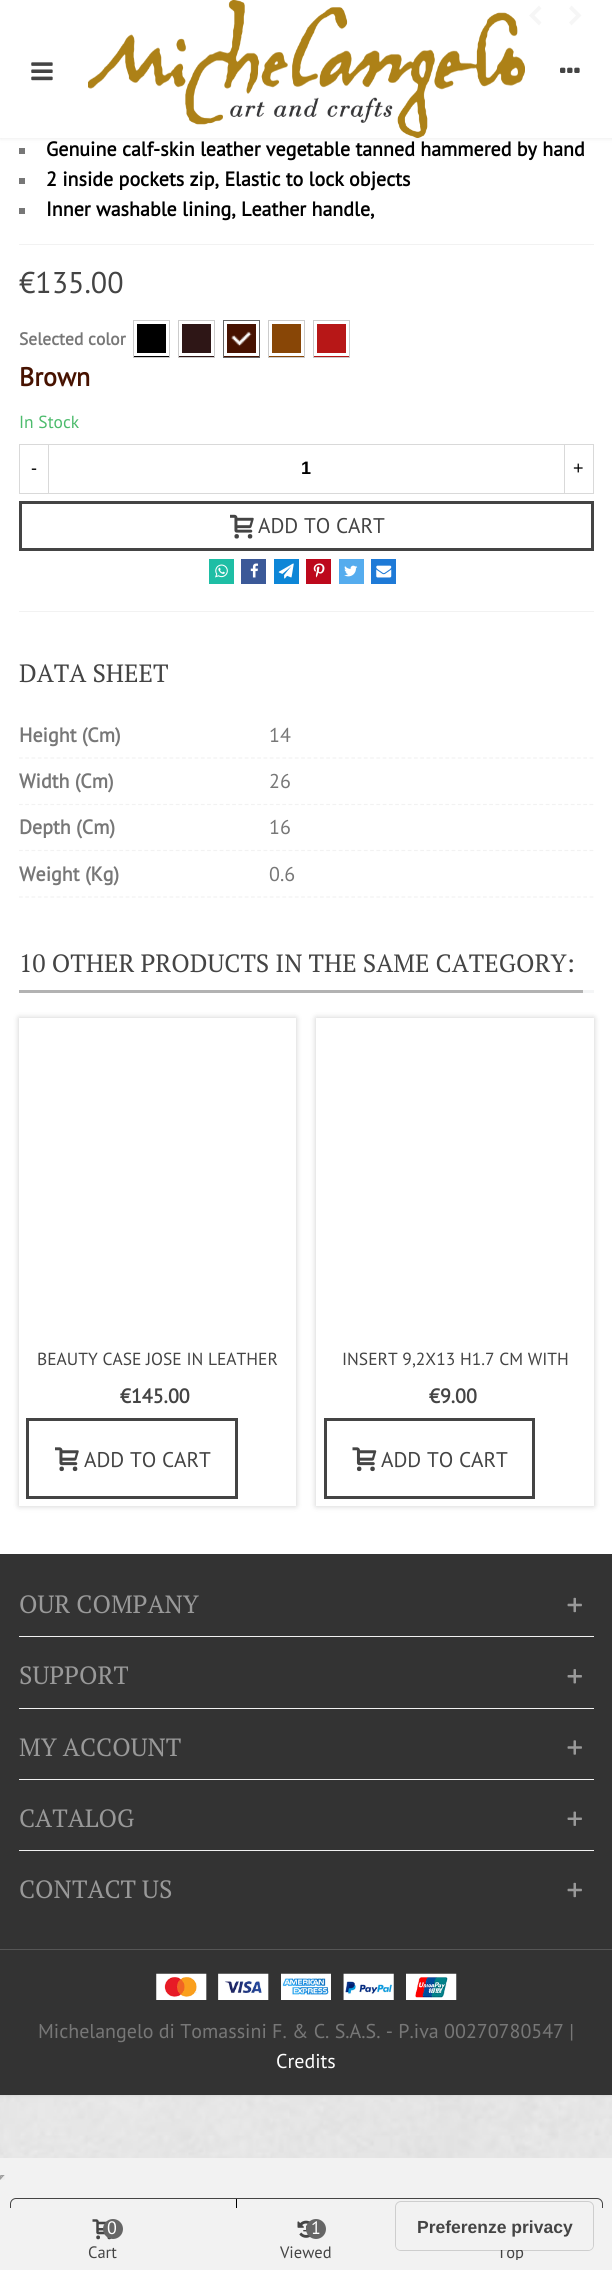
#include <cairo.h>
#include <math.h>
#include <stddef.h>


static void rgb(cairo_t *cr, int r, int g, int b)
{
	cairo_set_source_rgb(cr, r / 255.0, g / 255.0, b / 255.0);
}

static void face(cairo_t *cr, const char *family, double size, int italic, int bold)
{
	cairo_select_font_face(cr, family, italic ? CAIRO_FONT_SLANT_ITALIC : CAIRO_FONT_SLANT_NORMAL,
		bold ? CAIRO_FONT_WEIGHT_BOLD : CAIRO_FONT_WEIGHT_NORMAL);
	cairo_set_font_size(cr, size);
}

static void label(cairo_t *cr, double x, double y, const char *s)
{
	cairo_move_to(cr, x, y);
	cairo_show_text(cr, s);
}

static void rect(cairo_t *cr, double x, double y, double w, double h)
{
	cairo_rectangle(cr, x, y, w, h);
	cairo_fill(cr);
}

static void rrect(cairo_t *cr, double x, double y, double w, double h, double r)
{
	cairo_new_sub_path(cr);
	cairo_arc(cr, x + w - r, y + h - r, r, 0, M_PI / 2);
	cairo_arc(cr, x + r, y + h - r, r, M_PI / 2, M_PI);
	cairo_arc(cr, x + r, y + r, r, M_PI, 1.5 * M_PI);
	cairo_arc(cr, x + w - r, y + r, r, 1.5 * M_PI, 2 * M_PI);
	cairo_close_path(cr);
}

static void soft_shadow(cairo_t *cr, double x, double y, double w, double h, double r, double blur, double alpha)
{
	cairo_push_group_with_content(cr, CAIRO_CONTENT_ALPHA);
	cairo_set_operator(cr, CAIRO_OPERATOR_SOURCE);
	for (int i = 15; i >= -15 && fmin(w, h) + blur * i / 3 > 0; i -= 2) {
		double e = blur * i / 6;
		cairo_set_source_rgba(cr, 0, 0, 0, alpha * erfc((i - 1) / 8.5) / 2);
		rrect(cr, x - e, y - e, w + 2 * e, h + 2 * e, fmax(0, fmin(r + e + blur * .6, fmin(w, h) / 2 + e)));
		cairo_fill(cr);
	}
	cairo_pattern_t *soft = cairo_pop_group(cr);
	cairo_mask(cr, soft);
	cairo_pattern_destroy(soft);
}

static void image(cairo_t *cr, const char *path, double x, double y, double w, double h)
{
	cairo_surface_t *image = cairo_image_surface_create_from_png(path);
	cairo_save(cr);
	cairo_set_source_surface(cr, image, x, y);
	cairo_rectangle(cr, x, y, w, h);
	cairo_fill(cr);
	cairo_restore(cr);
	cairo_surface_destroy(image);
}

static void draw(cairo_t *cr) {
	rgb(cr, 242, 242, 242);
	cairo_paint(cr);
	rgb(cr, 159, 159, 159);
	cairo_new_path(cr);
	cairo_move_to(cr, 0, 2175);
	cairo_line_to(cr, 5, 2175);
	cairo_line_to(cr, 2.5, 2177.5);
	cairo_close_path(cr);
	cairo_fill(cr);
	image(cr, "image0.png", 0, 2095, 612, 63);
	rgb(cr, 0, 0, 0);
	soft_shadow(cr, 0, -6, 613, 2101, 0, 2, 0.1);
	rgb(cr, 255, 255, 255);
	rect(cr, 0, 0, 612, 1554);
	rgb(cr, 68, 68, 68);
	cairo_new_path(cr);
	cairo_move_to(cr, 529, 15.5);
	cairo_line_to(cr, 539, 5.5);
	cairo_line_to(cr, 541.5, 8.5);
	cairo_line_to(cr, 534.5, 15.5);
	cairo_line_to(cr, 541.5, 22.5);
	cairo_line_to(cr, 539, 25.5);
	cairo_close_path(cr);
	cairo_move_to(cr, 569, 22.5);
	cairo_line_to(cr, 576, 15.5);
	cairo_line_to(cr, 569, 8.5);
	cairo_line_to(cr, 571.5, 5.5);
	cairo_line_to(cr, 581.5, 15.5);
	cairo_line_to(cr, 571.5, 25.5);
	cairo_close_path(cr);
	cairo_fill(cr);
	cairo_save(cr);
	cairo_set_fill_rule(cr, CAIRO_FILL_RULE_EVEN_ODD);
	cairo_new_path(cr);
	cairo_move_to(cr, 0, 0);
	cairo_line_to(cr, 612, 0);
	cairo_line_to(cr, 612, 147);
	cairo_line_to(cr, 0, 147);
	cairo_close_path(cr);
	cairo_move_to(cr, 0, 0);
	cairo_line_to(cr, 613, 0);
	cairo_line_to(cr, 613, 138);
	cairo_line_to(cr, 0, 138);
	cairo_close_path(cr);
	cairo_clip(cr);
	rgb(cr, 0, 0, 0);
	soft_shadow(cr, 0, 0, 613, 138, 0, 2.5, 0.1);
	cairo_restore(cr);
	cairo_set_source_rgba(cr, 1, 1, 1, 0.95);
	rect(cr, 0, 5, 612, 133);
	image(cr, "image1.png", 31, 62, 22, 19);
	image(cr, "image2.png", 88, 0, 437, 138);
	image(cr, "image3.png", 560, 67, 20, 6);
	rgb(cr, 119, 119, 119);
	rect(cr, 19, 148, 6, 6);
	face(cr, "PT Sans", 20, 0, 1);
	rgb(cr, 0, 0, 0);
	label(cr, 46, 156, "Genuine calf-skin leather vegetable tanned hammered by hand");
	rgb(cr, 119, 119, 119);
	rect(cr, 19, 178, 6, 6);
	rgb(cr, 0, 0, 0);
	label(cr, 46, 186, "2 inside pockets zip, Elastic to lock objects");
	rgb(cr, 119, 119, 119);
	rect(cr, 19, 208, 6, 6);
	rgb(cr, 0, 0, 0);
	label(cr, 46, 216, "Inner washable lining, Leather handle,");
	rgb(cr, 242, 242, 242);
	rect(cr, 19, 244, 575, 1);
	face(cr, "PT Sans", 30, 0, 0);
	rgb(cr, 68, 68, 68);
	label(cr, 19, 293, "€135.00");
	face(cr, "PT Sans", 17.5, 0, 1);
	rgb(cr, 119, 119, 119);
	label(cr, 19, 345, "Selected color");
	rgb(cr, 0, 0, 0);
	rect(cr, 134, 324, 35, 33);
	cairo_rectangle(cr, 133.5, 320.5, 36, 37);
	rgb(cr, 204, 204, 204);
	cairo_set_line_width(cr, 1);
	cairo_stroke(cr);
	cairo_rectangle(cr, 135.5, 322.5, 32, 32);
	rgb(cr, 255, 255, 255);
	cairo_set_line_width(cr, 3);
	cairo_stroke(cr);
	rgb(cr, 46, 22, 22);
	rect(cr, 179, 324, 35, 33);
	cairo_rectangle(cr, 178.5, 320.5, 36, 37);
	rgb(cr, 204, 204, 204);
	cairo_set_line_width(cr, 1);
	cairo_stroke(cr);
	cairo_rectangle(cr, 180.5, 322.5, 32, 32);
	rgb(cr, 255, 255, 255);
	cairo_set_line_width(cr, 3);
	cairo_stroke(cr);
	rgb(cr, 71, 18, 0);
	rect(cr, 224, 324, 35, 33);
	cairo_rectangle(cr, 223.5, 320.5, 36, 37);
	rgb(cr, 102, 102, 102);
	cairo_set_line_width(cr, 1);
	cairo_stroke(cr);
	cairo_rectangle(cr, 225.5, 322.5, 32, 32);
	rgb(cr, 255, 255, 255);
	cairo_set_line_width(cr, 3);
	cairo_stroke(cr);
	image(cr, "image4.png", 231, 331, 21, 16);
	rgb(cr, 136, 70, 6);
	rect(cr, 269, 324, 35, 33);
	cairo_rectangle(cr, 268.5, 320.5, 36, 37);
	rgb(cr, 204, 204, 204);
	cairo_set_line_width(cr, 1);
	cairo_stroke(cr);
	cairo_rectangle(cr, 270.5, 322.5, 32, 32);
	rgb(cr, 255, 255, 255);
	cairo_set_line_width(cr, 3);
	cairo_stroke(cr);
	rgb(cr, 183, 23, 23);
	rect(cr, 314, 324, 35, 33);
	cairo_rectangle(cr, 313.5, 320.5, 36, 37);
	rgb(cr, 204, 204, 204);
	cairo_set_line_width(cr, 1);
	cairo_stroke(cr);
	cairo_rectangle(cr, 315.5, 322.5, 32, 32);
	rgb(cr, 255, 255, 255);
	cairo_set_line_width(cr, 3);
	cairo_stroke(cr);
	face(cr, "PT Sans", 26, 0, 1);
	rgb(cr, 71, 18, 0);
	label(cr, 19, 386, "Brown");
	face(cr, "PT Sans", 17.5, 0, 0);
	rgb(cr, 76, 187, 108);
	label(cr, 19, 428, "In Stock");
	cairo_rectangle(cr, 19.5, 444.5, 29, 49);
	rgb(cr, 217, 217, 217);
	cairo_set_line_width(cr, 1);
	cairo_stroke(cr);
	face(cr, "Liberation Sans", 18, 0, 0);
	rgb(cr, 0, 0, 0);
	label(cr, 31, 474, "-");
	cairo_rectangle(cr, 48.5, 444.5, 516, 49);
	rgb(cr, 217, 217, 217);
	cairo_stroke(cr);
	face(cr, "Liberation Sans", 18, 0, 1);
	rgb(cr, 0, 0, 0);
	label(cr, 301, 474, "1");
	cairo_rectangle(cr, 564.5, 444.5, 29, 49);
	rgb(cr, 217, 217, 217);
	cairo_stroke(cr);
	face(cr, "Liberation Sans", 18, 0, 0);
	rgb(cr, 0, 0, 0);
	label(cr, 573, 474, "+");
	cairo_rectangle(cr, 20.5, 502.5, 572, 47);
	rgb(cr, 68, 68, 68);
	cairo_set_line_width(cr, 3);
	cairo_stroke(cr);
	image(cr, "image5.png", 230, 514, 24, 25);
	face(cr, "PT Sans", 21.25, 0, 0);
	label(cr, 258, 533, "ADD TO CART");
	rgb(cr, 30, 190, 165);
	rect(cr, 209, 559, 25, 25);
	image(cr, "image6.png", 215, 564, 13, 14);
	rgb(cr, 59, 89, 152);
	rect(cr, 241, 559, 25, 25);
	image(cr, "image7.png", 250, 563, 9, 15);
	rgb(cr, 13, 134, 215);
	rect(cr, 274, 559, 25, 25);
	image(cr, "image8.png", 278, 563, 16, 16);
	rgb(cr, 189, 8, 28);
	rect(cr, 306, 559, 25, 25);
	image(cr, "image9.png", 313, 563, 12, 15);
	rgb(cr, 85, 172, 238);
	rect(cr, 339, 559, 25, 25);
	image(cr, "image10.png", 344, 565, 14, 12);
	rgb(cr, 30, 122, 215);
	rect(cr, 371, 559, 25, 25);
	image(cr, "image11.png", 376, 565, 16, 13);
	rgb(cr, 242, 242, 242);
	rect(cr, 19, 611, 575, 1);
	face(cr, "PT Serif", 25, 0, 0);
	rgb(cr, 68, 68, 68);
	label(cr, 19, 682, "DATA SHEET");
	cairo_new_path(cr);
	cairo_move_to(cr, 19, 758);
	cairo_line_to(cr, 594, 758);
	rgb(cr, 242, 242, 242);
	cairo_set_line_width(cr, 1.2);
	cairo_set_dash(cr, (double[]){3.75, 2.52}, 2, 0);
	cairo_stroke(cr);
	face(cr, "PT Sans", 20, 0, 1);
	rgb(cr, 119, 119, 119);
	label(cr, 19, 742, "Height (Cm)");
	face(cr, "PT Sans", 20, 0, 0);
	label(cr, 269, 742, "14");
	cairo_new_path(cr);
	cairo_move_to(cr, 19, 804.5);
	cairo_line_to(cr, 594, 804.5);
	rgb(cr, 242, 242, 242);
	cairo_stroke(cr);
	face(cr, "PT Sans", 20, 0, 1);
	rgb(cr, 119, 119, 119);
	label(cr, 19, 788, "Width (Cm)");
	face(cr, "PT Sans", 20, 0, 0);
	label(cr, 269, 788, "26");
	cairo_new_path(cr);
	cairo_move_to(cr, 19, 850.5);
	cairo_line_to(cr, 594, 850.5);
	rgb(cr, 242, 242, 242);
	cairo_stroke(cr);
	face(cr, "PT Sans", 20, 0, 1);
	rgb(cr, 119, 119, 119);
	label(cr, 19, 834, "Depth (Cm)");
	face(cr, "PT Sans", 20, 0, 0);
	label(cr, 269, 834, "16");
	cairo_new_path(cr);
	cairo_move_to(cr, 19, 897);
	cairo_line_to(cr, 594, 897);
	rgb(cr, 242, 242, 242);
	cairo_stroke(cr);
	face(cr, "PT Sans", 20, 0, 1);
	rgb(cr, 119, 119, 119);
	label(cr, 19, 881, "Weight (Kg)");
	face(cr, "PT Sans", 20, 0, 0);
	label(cr, 269, 881, "0.6");
	rgb(cr, 244, 245, 246);
	rect(cr, 583, 990, 11, 3);
	rgb(cr, 178, 178, 178);
	rect(cr, 19, 990, 564, 3);
	face(cr, "PT Serif", 25, 0, 0);
	rgb(cr, 68, 68, 68);
	label(cr, 19, 972, "10 OTHER PRODUCTS IN THE SAME CATEGORY:");
	cairo_save(cr);
	cairo_set_fill_rule(cr, CAIRO_FILL_RULE_EVEN_ODD);
	cairo_new_path(cr);
	cairo_move_to(cr, 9, 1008);
	cairo_line_to(cr, 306, 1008);
	cairo_line_to(cr, 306, 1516);
	cairo_line_to(cr, 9, 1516);
	cairo_close_path(cr);
	cairo_move_to(cr, 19, 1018);
	cairo_line_to(cr, 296, 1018);
	cairo_line_to(cr, 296, 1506);
	cairo_line_to(cr, 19, 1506);
	cairo_close_path(cr);
	cairo_clip(cr);
	rgb(cr, 0, 0, 0);
	soft_shadow(cr, 19, 1018, 277, 488, 0, 3, 0.2);
	cairo_restore(cr);
	face(cr, "PT Sans", 17.5, 0, 0);
	label(cr, 37, 1365, "BEAUTY CASE JOSE IN LEATHER");
	face(cr, "PT Sans", 20, 0, 1);
	label(cr, 120, 1403, "€145.00");
	cairo_rectangle(cr, 27.5, 1419.5, 209, 78);
	cairo_set_line_width(cr, 3);
	cairo_set_dash(cr, NULL, 0, 0);
	cairo_stroke(cr);
	image(cr, "image12.png", 55, 1447, 24, 25);
	face(cr, "PT Sans", 21.25, 0, 0);
	label(cr, 84, 1467, "ADD TO CART");
	cairo_save(cr);
	cairo_set_fill_rule(cr, CAIRO_FILL_RULE_EVEN_ODD);
	cairo_new_path(cr);
	cairo_move_to(cr, 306, 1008);
	cairo_line_to(cr, 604, 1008);
	cairo_line_to(cr, 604, 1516);
	cairo_line_to(cr, 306, 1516);
	cairo_close_path(cr);
	cairo_move_to(cr, 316, 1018);
	cairo_line_to(cr, 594, 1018);
	cairo_line_to(cr, 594, 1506);
	cairo_line_to(cr, 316, 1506);
	cairo_close_path(cr);
	cairo_clip(cr);
	rgb(cr, 0, 0, 0);
	soft_shadow(cr, 316, 1018, 278, 488, 0, 3, 0.2);
	cairo_restore(cr);
	face(cr, "PT Sans", 17.5, 0, 0);
	label(cr, 342, 1365, "INSERT 9,2X13 H1.7 CM WITH");
	face(cr, "PT Sans", 20, 0, 1);
	label(cr, 429, 1403, "€9.00");
	cairo_rectangle(cr, 325.5, 1419.5, 208, 78);
	cairo_stroke(cr);
	image(cr, "image13.png", 352, 1447, 25, 25);
	face(cr, "PT Sans", 21.25, 0, 0);
	label(cr, 381, 1467, "ADD TO CART");
	rgb(cr, 51, 51, 51);
	rect(cr, 0, 1554, 612, 395);
	rgb(cr, 242, 242, 242);
	rect(cr, 19, 1636, 575, 1);
	face(cr, "PT Serif", 25, 0, 0);
	rgb(cr, 153, 153, 153);
	label(cr, 19, 1613, "OUR COMPANY");
	image(cr, "image14.png", 567, 1597, 15, 16);
	rgb(cr, 242, 242, 242);
	rect(cr, 19, 1708, 575, 1);
	rgb(cr, 153, 153, 153);
	label(cr, 19, 1684, "SUPPORT");
	image(cr, "image15.png", 567, 1669, 15, 15);
	rgb(cr, 242, 242, 242);
	rect(cr, 19, 1779, 575, 1);
	rgb(cr, 153, 153, 153);
	label(cr, 19, 1756, "MY ACCOUNT");
	image(cr, "image16.png", 567, 1740, 15, 15);
	rgb(cr, 242, 242, 242);
	rect(cr, 19, 1850, 575, 1);
	rgb(cr, 153, 153, 153);
	label(cr, 19, 1827, "CATALOG");
	image(cr, "image17.png", 567, 1811, 15, 15);
	label(cr, 19, 1898, "CONTACT US");
	image(cr, "image14.png", 567, 1882, 15, 16);
	rgb(cr, 51, 51, 51);
	rect(cr, 0, 1950, 612, 145);
	rgb(cr, 85, 85, 85);
	rect(cr, 0, 1949, 612, 1);
	image(cr, "image18.png", 156, 1973, 301, 27);
	face(cr, "PT Sans", 20, 0, 0);
	rgb(cr, 119, 119, 119);
	label(cr, 38, 2038, "Michelangelo di Tomassini F. & C. S.A.S. - P.iva 00270780547 |");
	rgb(cr, 255, 255, 255);
	label(cr, 276, 2068, "Credits");
	rrect(cr, 10.5, 2198.5, 592, 61, 5.5);
	rgb(cr, 68, 68, 68);
	cairo_set_line_width(cr, 1);
	cairo_stroke(cr);
	rgb(cr, 242, 242, 242);
	rect(cr, 10, 2208, 194, 52);
	image(cr, "image19.png", 92, 2219, 20, 21);
	rgb(cr, 102, 102, 102);
	cairo_arc(cr, 113, 2229, 10, 0, 2 * M_PI);
	cairo_fill(cr);
	face(cr, "PT Sans", 18, 0, 0);
	rgb(cr, 255, 255, 255);
	label(cr, 107, 2234, "0");
	face(cr, "PT Sans", 16.5, 0, 0);
	rgb(cr, 68, 68, 68);
	label(cr, 88, 2258, "Cart");
	rgb(cr, 242, 242, 242);
	rect(cr, 204, 2259, 205, 1);
	image(cr, "image20.png", 297, 2220, 13, 18);
	rgb(cr, 102, 102, 102);
	cairo_arc(cr, 316, 2229, 10, 0, 2 * M_PI);
	cairo_fill(cr);
	face(cr, "PT Sans", 18, 0, 0);
	rgb(cr, 255, 255, 255);
	label(cr, 311, 2234, "1");
	face(cr, "PT Sans", 16.5, 0, 0);
	rgb(cr, 68, 68, 68);
	label(cr, 280, 2258, "Viewed");
	rgb(cr, 242, 242, 242);
	rect(cr, 409, 2208, 194, 52);
	cairo_save(cr);
	cairo_rectangle(cr, 409, 2243, 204, 17);
	cairo_clip(cr);
	rgb(cr, 68, 68, 68);
	label(cr, 497, 2258, "Top");
	cairo_restore(cr);
	rgb(cr, 238, 238, 238);
	cairo_new_path(cr);
	cairo_move_to(cr, 5, 2175);
	cairo_line_to(cr, 5, 2180);
	cairo_line_to(cr, 2.5, 2177.5);
	cairo_close_path(cr);
	cairo_fill(cr);
	cairo_new_path(cr);
	cairo_move_to(cr, 5, 2180);
	cairo_line_to(cr, 0, 2180);
	cairo_line_to(cr, 2.5, 2177.5);
	cairo_close_path(cr);
	cairo_fill(cr);
	rgb(cr, 159, 159, 159);
	cairo_new_path(cr);
	cairo_move_to(cr, 0, 2180);
	cairo_line_to(cr, 0, 2175);
	cairo_line_to(cr, 2.5, 2177.5);
	cairo_close_path(cr);
	cairo_fill(cr);
	rgb(cr, 0, 0, 0);
	rect(cr, 236, 2199, 1, 9);
	rrect(cr, 395.5, 2201.5, 198, 49, 5.5);
	cairo_set_source_rgba(cr, 0, 0, 0, 0.15);
	cairo_stroke(cr);
	rgb(cr, 242, 242, 242);
	rrect(cr, 396, 2203, 197, 47, 5);
	cairo_fill(cr);
	face(cr, "Liberation Sans", 17.5, 0, 1);
	rgb(cr, 68, 68, 68);
	label(cr, 417, 2233, "Preferenze privacy");
}

int main(void) {
	cairo_surface_t *surface = cairo_image_surface_create(CAIRO_FORMAT_RGB24, 612, 2270);
	cairo_t *cr = cairo_create(surface);
	cairo_font_options_t *options = cairo_font_options_create();
	cairo_font_options_set_hint_metrics(options, CAIRO_HINT_METRICS_OFF);
	cairo_font_options_set_hint_style(options, CAIRO_HINT_STYLE_NONE);
	cairo_set_font_options(cr, options);
	cairo_set_miter_limit(cr, 4);
	draw(cr);
	cairo_surface_write_to_png(surface, "render.png");
	cairo_font_options_destroy(options);
	cairo_destroy(cr);
	cairo_surface_destroy(surface);
	return 0;
}
